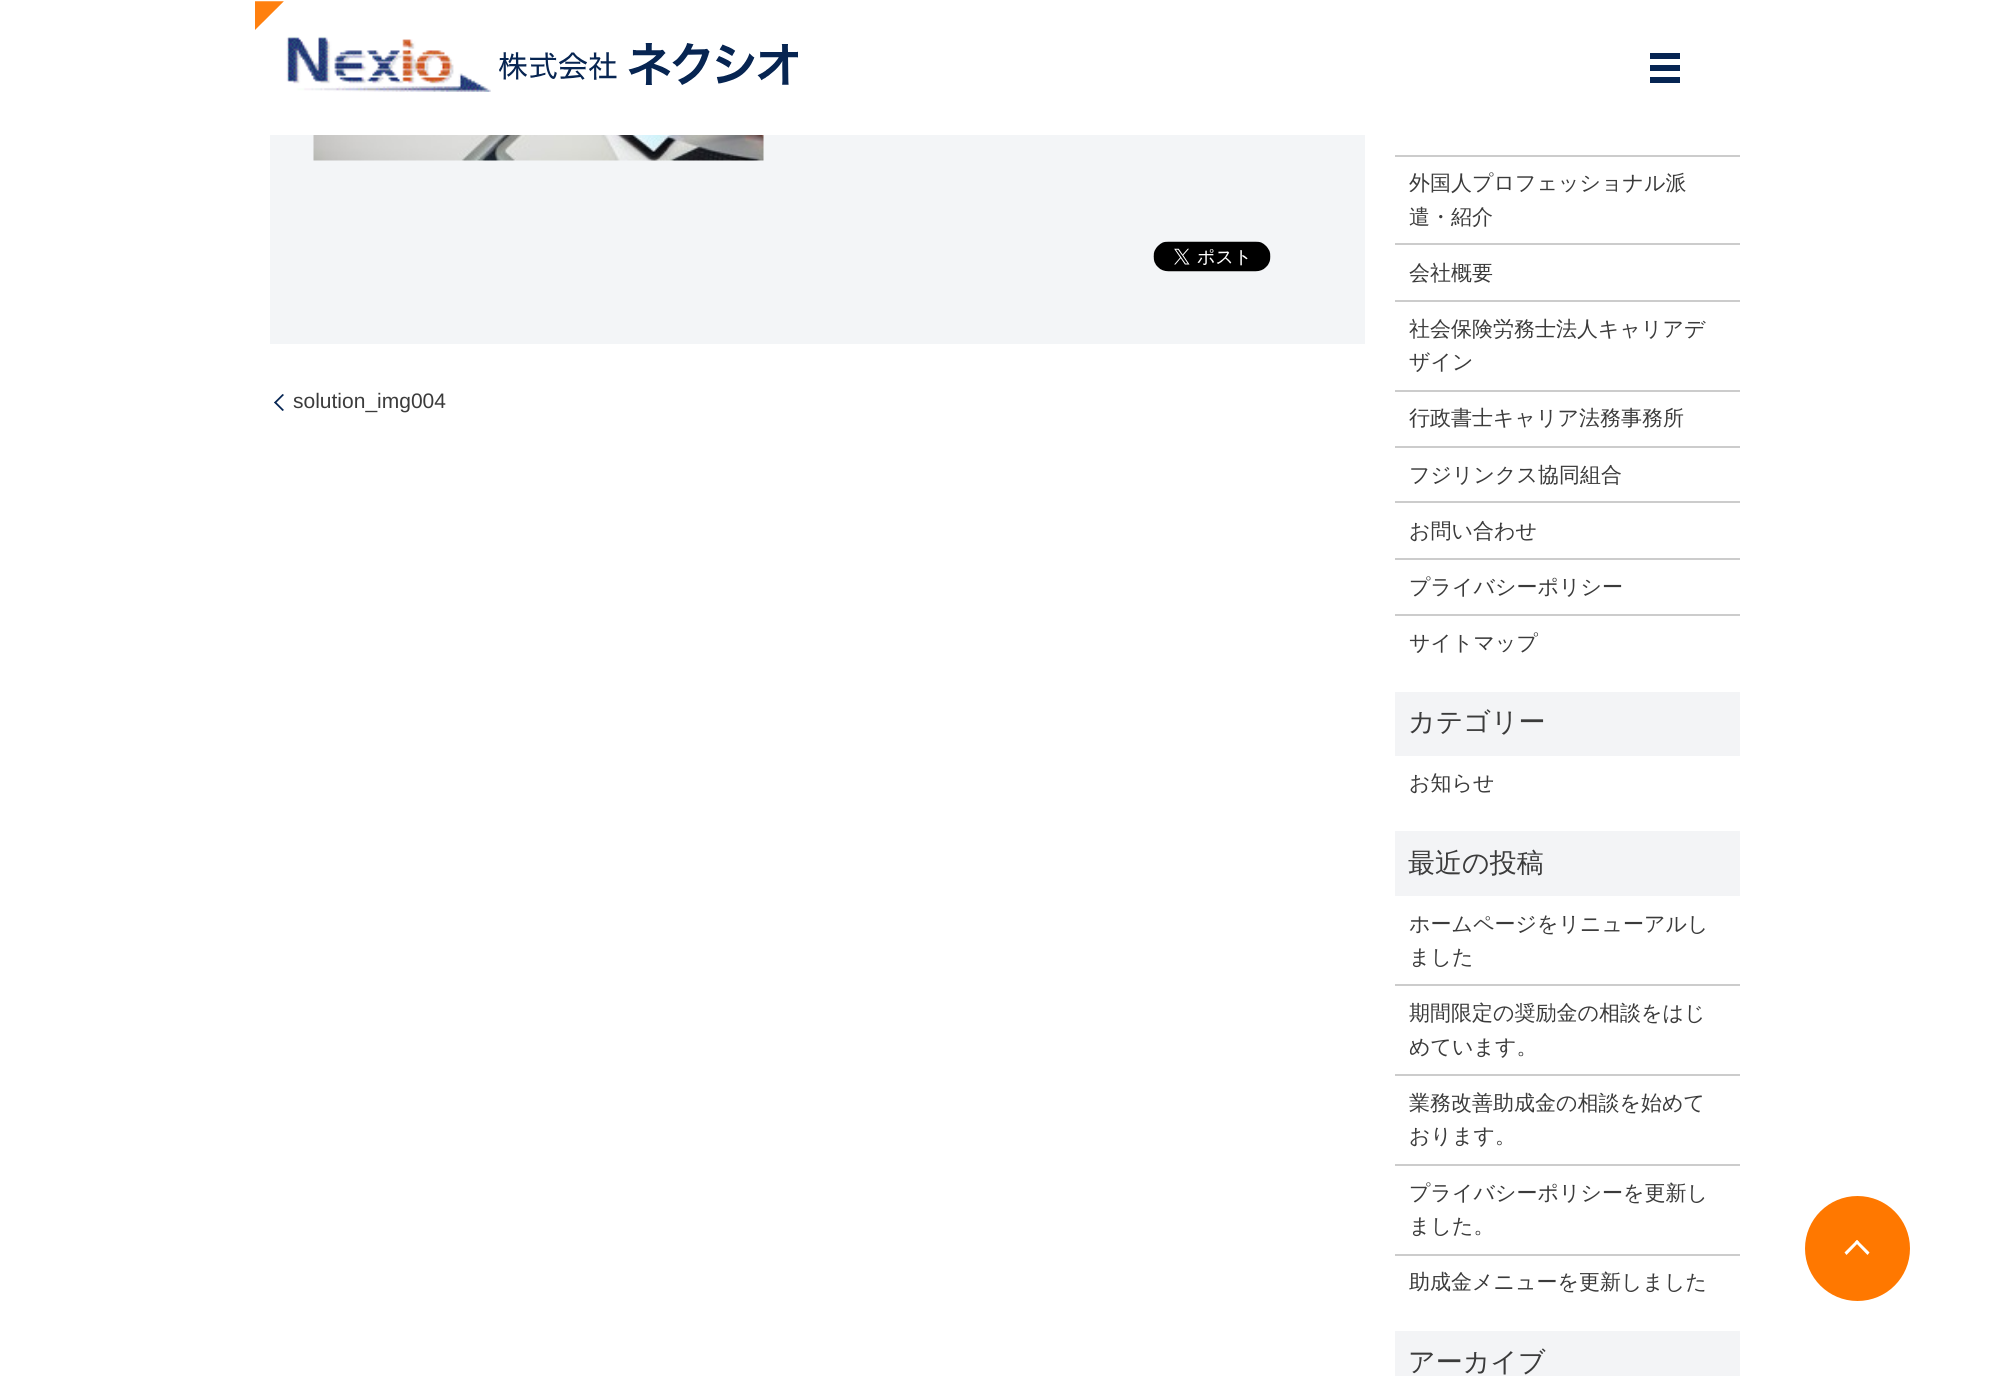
#include <cairo.h>
#include <math.h>
#include <stddef.h>


static void rgb(cairo_t *cr, int r, int g, int b)
{
	cairo_set_source_rgb(cr, r / 255.0, g / 255.0, b / 255.0);
}

static void face(cairo_t *cr, const char *family, double size, int italic, int bold)
{
	cairo_select_font_face(cr, family, italic ? CAIRO_FONT_SLANT_ITALIC : CAIRO_FONT_SLANT_NORMAL,
		bold ? CAIRO_FONT_WEIGHT_BOLD : CAIRO_FONT_WEIGHT_NORMAL);
	cairo_set_font_size(cr, size);
}

static void label(cairo_t *cr, double x, double y, const char *s)
{
	cairo_move_to(cr, x, y);
	cairo_show_text(cr, s);
}

static void rect(cairo_t *cr, double x, double y, double w, double h)
{
	cairo_rectangle(cr, x, y, w, h);
	cairo_fill(cr);
}

static void image(cairo_t *cr, const char *path, double x, double y, double w, double h)
{
	cairo_surface_t *image = cairo_image_surface_create_from_png(path);
	cairo_save(cr);
	cairo_set_source_surface(cr, image, x, y);
	cairo_rectangle(cr, x, y, w, h);
	cairo_fill(cr);
	cairo_restore(cr);
	cairo_surface_destroy(image);
}

static void draw(cairo_t *cr) {
	rgb(cr, 255, 255, 255);
	cairo_paint(cr);
	image(cr, "image0.png", 255, 1, 543, 91);
	rgb(cr, 6, 37, 83);
	rect(cr, 1650, 53, 30, 6);
	rect(cr, 1650, 65, 30, 6);
	rect(cr, 1650, 77, 30, 6);
	rgb(cr, 243, 245, 247);
	rect(cr, 270, 135, 1095, 209);
	image(cr, "image1.png", 313, 135, 451, 26);
	image(cr, "image2.png", 1153, 241, 118, 31);
	rgb(cr, 6, 37, 83);
	cairo_new_path(cr);
	cairo_move_to(cr, 274, 402.5);
	cairo_line_to(cr, 282.5, 394);
	cairo_line_to(cr, 284, 395);
	cairo_line_to(cr, 275.5, 403.5);
	cairo_close_path(cr);
	cairo_fill(cr);
	face(cr, "Liberation Sans", 21, 0, 0);
	rgb(cr, 59, 59, 59);
	label(cr, 293, 408, "solution_img004");
	rgb(cr, 6, 37, 83);
	cairo_new_path(cr);
	cairo_move_to(cr, 282.5, 411);
	cairo_line_to(cr, 274, 402.5);
	cairo_line_to(cr, 275.5, 401.5);
	cairo_line_to(cr, 284, 410);
	cairo_close_path(cr);
	cairo_fill(cr);
	rgb(cr, 204, 204, 204);
	rect(cr, 1395, 155, 345, 2);
	rect(cr, 1395, 243, 345, 2);
	face(cr, "WenQuanYi Zen Hei Medium", 21, 0, 0);
	rgb(cr, 59, 59, 59);
	label(cr, 1409, 190, "外国人プロフェッショナル派");
	label(cr, 1409, 224, "遣・紹介");
	rgb(cr, 204, 204, 204);
	rect(cr, 1395, 300, 345, 2);
	rgb(cr, 59, 59, 59);
	label(cr, 1409, 280, "会社概要");
	rgb(cr, 204, 204, 204);
	rect(cr, 1395, 390, 345, 2);
	rgb(cr, 59, 59, 59);
	label(cr, 1409, 336, "社会保険労務士法人キャリアデ");
	label(cr, 1409, 369, "ザイン");
	rgb(cr, 204, 204, 204);
	rect(cr, 1395, 446, 345, 2);
	rgb(cr, 59, 59, 59);
	label(cr, 1409, 425, "行政書士キャリア法務事務所");
	rgb(cr, 204, 204, 204);
	rect(cr, 1395, 501, 345, 2);
	rgb(cr, 59, 59, 59);
	label(cr, 1409, 482, "フジリンクス協同組合");
	rgb(cr, 204, 204, 204);
	rect(cr, 1395, 558, 345, 2);
	rgb(cr, 59, 59, 59);
	label(cr, 1409, 538, "お問い合わせ");
	rgb(cr, 204, 204, 204);
	rect(cr, 1395, 614, 345, 2);
	rgb(cr, 59, 59, 59);
	label(cr, 1409, 594, "プライバシーポリシー");
	label(cr, 1409, 650, "サイトマップ");
	rgb(cr, 243, 244, 246);
	rect(cr, 1395, 692, 345, 64);
	face(cr, "WenQuanYi Zen Hei Medium", 27, 0, 0);
	rgb(cr, 59, 59, 59);
	label(cr, 1408, 731, "カテゴリー");
	face(cr, "WenQuanYi Zen Hei Medium", 21, 0, 0);
	label(cr, 1409, 790, "お知らせ");
	rgb(cr, 243, 244, 246);
	rect(cr, 1395, 831, 345, 65);
	face(cr, "WenQuanYi Zen Hei Medium", 27, 0, 0);
	rgb(cr, 59, 59, 59);
	label(cr, 1408, 872, "最近の投稿");
	rgb(cr, 204, 204, 204);
	rect(cr, 1395, 984, 345, 2);
	face(cr, "WenQuanYi Zen Hei Medium", 21, 0, 0);
	rgb(cr, 59, 59, 59);
	label(cr, 1409, 931, "ホームページをリニューアルし");
	label(cr, 1409, 964, "ました");
	rgb(cr, 204, 204, 204);
	rect(cr, 1395, 1074, 345, 2);
	rgb(cr, 59, 59, 59);
	label(cr, 1409, 1020, "期間限定の奨励金の相談をはじ");
	label(cr, 1409, 1054, "めています。");
	rgb(cr, 204, 204, 204);
	rect(cr, 1395, 1164, 345, 2);
	rgb(cr, 59, 59, 59);
	label(cr, 1409, 1110, "業務改善助成金の相談を始めて");
	label(cr, 1409, 1143, "おります。");
	rgb(cr, 204, 204, 204);
	rect(cr, 1395, 1254, 345, 2);
	rgb(cr, 59, 59, 59);
	label(cr, 1409, 1200, "プライバシーポリシーを更新し");
	label(cr, 1409, 1233, "ました。");
	label(cr, 1409, 1289, "助成金メニューを更新しました");
	rgb(cr, 243, 244, 246);
	rect(cr, 1395, 1331, 345, 45);
	face(cr, "WenQuanYi Zen Hei Medium", 27, 0, 0);
	rgb(cr, 59, 59, 59);
	label(cr, 1408, 1371, "アーカイブ");
	rgb(cr, 255, 120, 0);
	cairo_new_path(cr);
	cairo_arc(cr, 1857.5, 1248.5, 52.5, 0, 2 * M_PI);
	cairo_fill(cr);
	rgb(cr, 255, 255, 255);
	cairo_new_path(cr);
	cairo_move_to(cr, 1857, 1240);
	cairo_line_to(cr, 1869.5, 1252.5);
	cairo_line_to(cr, 1867.5, 1255);
	cairo_line_to(cr, 1855, 1242);
	cairo_close_path(cr);
	cairo_fill(cr);
	cairo_new_path(cr);
	cairo_move_to(cr, 1857, 1240);
	cairo_line_to(cr, 1859, 1242);
	cairo_line_to(cr, 1846.5, 1255);
	cairo_line_to(cr, 1844.5, 1252.5);
	cairo_close_path(cr);
	cairo_fill(cr);
}

int main(void) {
	cairo_surface_t *surface = cairo_image_surface_create(CAIRO_FORMAT_RGB24, 2009, 1376);
	cairo_t *cr = cairo_create(surface);
	cairo_font_options_t *options = cairo_font_options_create();
	cairo_font_options_set_hint_metrics(options, CAIRO_HINT_METRICS_OFF);
	cairo_font_options_set_hint_style(options, CAIRO_HINT_STYLE_NONE);
	cairo_set_font_options(cr, options);
	cairo_set_miter_limit(cr, 4);
	draw(cr);
	cairo_surface_write_to_png(surface, "render.png");
	cairo_font_options_destroy(options);
	cairo_destroy(cr);
	cairo_surface_destroy(surface);
	return 0;
}
